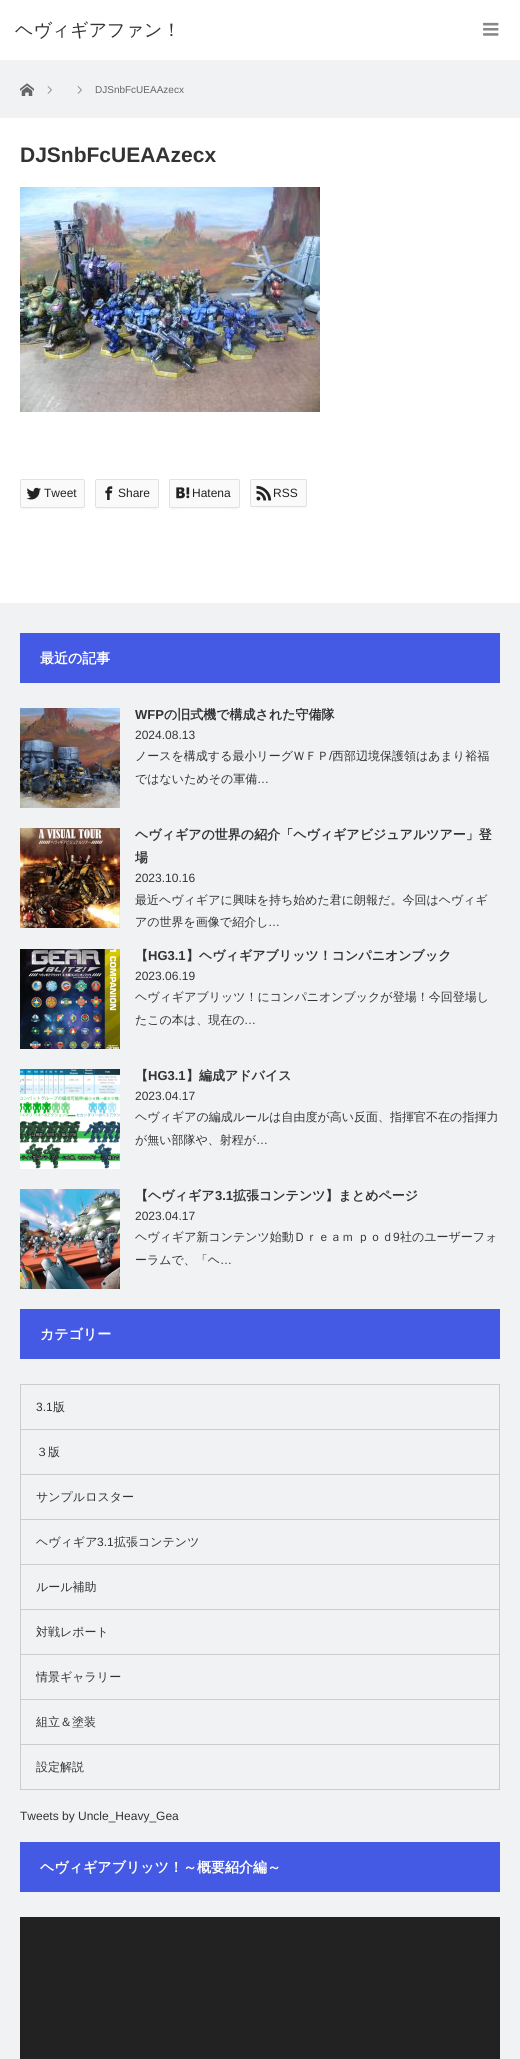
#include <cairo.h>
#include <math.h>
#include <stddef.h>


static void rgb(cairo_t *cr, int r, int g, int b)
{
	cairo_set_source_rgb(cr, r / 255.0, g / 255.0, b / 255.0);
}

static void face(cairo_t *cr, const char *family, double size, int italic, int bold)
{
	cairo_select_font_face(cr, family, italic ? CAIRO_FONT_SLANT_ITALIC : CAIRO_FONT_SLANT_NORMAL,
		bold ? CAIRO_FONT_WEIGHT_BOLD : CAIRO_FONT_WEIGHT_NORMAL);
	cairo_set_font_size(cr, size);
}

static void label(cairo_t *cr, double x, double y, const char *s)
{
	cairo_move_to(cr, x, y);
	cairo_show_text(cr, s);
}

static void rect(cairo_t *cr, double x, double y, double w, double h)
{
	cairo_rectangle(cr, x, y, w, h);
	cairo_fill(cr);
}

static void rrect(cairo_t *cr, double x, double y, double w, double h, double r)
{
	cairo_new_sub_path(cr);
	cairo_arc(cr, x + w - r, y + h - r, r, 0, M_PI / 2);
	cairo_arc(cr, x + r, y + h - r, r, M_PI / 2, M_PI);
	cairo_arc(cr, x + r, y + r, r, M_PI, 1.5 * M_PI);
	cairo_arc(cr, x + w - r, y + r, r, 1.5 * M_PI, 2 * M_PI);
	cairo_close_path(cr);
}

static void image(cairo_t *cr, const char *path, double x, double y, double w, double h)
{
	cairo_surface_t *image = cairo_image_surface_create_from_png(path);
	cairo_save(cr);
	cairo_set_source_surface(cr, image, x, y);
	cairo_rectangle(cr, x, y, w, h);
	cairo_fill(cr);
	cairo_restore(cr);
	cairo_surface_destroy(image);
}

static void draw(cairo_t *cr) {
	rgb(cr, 255, 255, 255);
	cairo_paint(cr);
	face(cr, "WenQuanYi Zen Hei Medium", 18, 0, 0);
	rgb(cr, 51, 51, 51);
	label(cr, 15, 36, "ヘヴィギアファン！");
	image(cr, "image0.png", 483, 22, 16, 14);
	rgb(cr, 240, 242, 243);
	rect(cr, 0, 60, 520, 1999);
	image(cr, "image1.png", 20, 83, 14, 13);
	image(cr, "image2.png", 47, 86, 5, 8);
	image(cr, "image2.png", 77, 86, 5, 8);
	face(cr, "Liberation Sans", 10, 0, 0);
	rgb(cr, 102, 102, 102);
	label(cr, 95, 93, "DJSnbFcUEAAzecx");
	rgb(cr, 255, 255, 255);
	rect(cr, 0, 118, 520, 485);
	face(cr, "Liberation Sans", 21, 0, 1);
	rgb(cr, 51, 51, 51);
	label(cr, 20, 162, "DJSnbFcUEAAzecx");
	image(cr, "image3.png", 20, 187, 300, 225);
	rgb(cr, 247, 247, 247);
	cairo_new_path(cr);
	cairo_move_to(cr, 20, 506);
	cairo_curve_to(cr, 20, 512, 28, 509, 32, 509);
	cairo_line_to(cr, 73, 509);
	cairo_curve_to(cr, 77, 509, 85, 512, 85, 506);
	cairo_curve_to(cr, 85, 510, 77, 508, 73, 508);
	cairo_line_to(cr, 21, 508);
	cairo_close_path(cr);
	cairo_fill(cr);
	rgb(cr, 250, 250, 250);
	rrect(cr, 20.5, 479.5, 64, 28, 1.5);
	cairo_fill_preserve(cr);
	rgb(cr, 225, 225, 225);
	cairo_set_line_width(cr, 1);
	cairo_stroke(cr);
	image(cr, "image4.png", 26, 487, 15, 13);
	face(cr, "Liberation Sans", 12, 0, 0);
	rgb(cr, 34, 34, 34);
	label(cr, 44, 497, "Tweet");
	rgb(cr, 247, 247, 247);
	cairo_new_path(cr);
	cairo_move_to(cr, 95, 506);
	cairo_curve_to(cr, 95, 512, 103, 509, 107, 509);
	cairo_line_to(cr, 147, 509);
	cairo_curve_to(cr, 151, 509, 159, 512, 159, 506);
	cairo_line_to(cr, 158, 508);
	cairo_line_to(cr, 107, 508);
	cairo_curve_to(cr, 103, 508, 95, 510, 95, 506);
	cairo_close_path(cr);
	cairo_fill(cr);
	rgb(cr, 250, 250, 250);
	rrect(cr, 95.5, 479.5, 63, 28, 1.5);
	cairo_fill_preserve(cr);
	rgb(cr, 225, 225, 225);
	cairo_stroke(cr);
	image(cr, "image5.png", 105, 486, 8, 14);
	rgb(cr, 34, 34, 34);
	label(cr, 118, 497, "Share");
	rgb(cr, 247, 247, 247);
	cairo_new_path(cr);
	cairo_move_to(cr, 169, 506);
	cairo_curve_to(cr, 169, 512, 179, 509, 182, 509);
	cairo_line_to(cr, 227, 509);
	cairo_curve_to(cr, 230, 509, 240, 512, 240, 506);
	cairo_curve_to(cr, 240, 507, 239, 508, 238, 508);
	cairo_line_to(cr, 170, 508);
	cairo_close_path(cr);
	cairo_fill(cr);
	rgb(cr, 250, 250, 250);
	rrect(cr, 169.5, 479.5, 70, 28, 1.5);
	cairo_fill_preserve(cr);
	rgb(cr, 225, 225, 225);
	cairo_stroke(cr);
	image(cr, "image6.png", 176, 487, 14, 12);
	rgb(cr, 34, 34, 34);
	label(cr, 192, 497, "Hatena");
	rgb(cr, 247, 247, 247);
	cairo_new_path(cr);
	cairo_move_to(cr, 250, 505);
	cairo_curve_to(cr, 250, 510, 257, 508, 261, 508);
	cairo_line_to(cr, 296, 508);
	cairo_curve_to(cr, 300, 508, 307, 510, 307, 505);
	cairo_line_to(cr, 306, 507);
	cairo_line_to(cr, 261, 507);
	cairo_curve_to(cr, 257, 507, 250, 509, 250, 505);
	cairo_close_path(cr);
	cairo_fill(cr);
	rgb(cr, 250, 250, 250);
	rrect(cr, 250.5, 479.5, 56, 27, 1.5);
	cairo_fill_preserve(cr);
	rgb(cr, 225, 225, 225);
	cairo_stroke(cr);
	image(cr, "image7.png", 256, 485, 16, 16);
	rgb(cr, 34, 34, 34);
	label(cr, 273, 497, "RSS");
	rgb(cr, 68, 90, 228);
	rect(cr, 20, 633, 480, 50);
	face(cr, "WenQuanYi Zen Hei", 14, 0, 1);
	rgb(cr, 255, 255, 255);
	label(cr, 40, 663, "最近の記事");
	image(cr, "image8.png", 20, 708, 100, 100);
	face(cr, "Liberation Sans", 13, 0, 1);
	rgb(cr, 51, 51, 51);
	label(cr, 135, 719, "WFP");
	face(cr, "WenQuanYi Zen Hei", 13, 0, 1);
	label(cr, 164, 719, "の旧式機で構成された守備隊");
	face(cr, "Liberation Sans", 12, 0, 0);
	label(cr, 135, 739, "2024.08.13");
	face(cr, "WenQuanYi Zen Hei Medium", 12, 0, 0);
	label(cr, 135, 760, "ノースを構成する最小リーグＷＦＰ");
	face(cr, "Liberation Sans", 12, 0, 0);
	label(cr, 329, 760, "/");
	face(cr, "WenQuanYi Zen Hei Medium", 12, 0, 0);
	label(cr, 332, 760, "西部辺境保護領はあまり裕福");
	label(cr, 135, 783, "ではないためその軍備");
	face(cr, "Liberation Sans", 12, 0, 0);
	label(cr, 257, 783, "…");
	image(cr, "image9.png", 20, 828, 100, 100);
	face(cr, "WenQuanYi Zen Hei", 13, 0, 1);
	label(cr, 135, 839, "ヘヴィギアの世界の紹介「ヘヴィギアビジュアルツアー」登");
	label(cr, 135, 862, "場");
	face(cr, "Liberation Sans", 12, 0, 0);
	label(cr, 135, 882, "2023.10.16");
	face(cr, "WenQuanYi Zen Hei Medium", 12, 0, 0);
	label(cr, 135, 904, "最近ヘヴィギアに興味を持ち始めた君に朗報だ。今回はヘヴィギ");
	label(cr, 135, 926, "アの世界を画像で紹介し");
	face(cr, "Liberation Sans", 12, 0, 0);
	label(cr, 268, 926, "…");
	image(cr, "image10.png", 20, 949, 100, 100);
	face(cr, "WenQuanYi Zen Hei", 13, 0, 1);
	label(cr, 135, 960, "【");
	face(cr, "Liberation Sans", 13, 0, 1);
	label(cr, 148, 960, "HG3.1");
	face(cr, "WenQuanYi Zen Hei", 13, 0, 1);
	label(cr, 186, 960, "】ヘヴィギアブリッツ！コンパニオンブック");
	face(cr, "Liberation Sans", 12, 0, 0);
	label(cr, 135, 980, "2023.06.19");
	face(cr, "WenQuanYi Zen Hei Medium", 12, 0, 0);
	label(cr, 135, 1001, "ヘヴィギアブリッツ！にコンパニオンブックが登場！今回登場し");
	label(cr, 135, 1024, "たこの本は、現在の");
	face(cr, "Liberation Sans", 12, 0, 0);
	label(cr, 244, 1024, "…");
	image(cr, "image11.png", 20, 1069, 100, 100);
	face(cr, "WenQuanYi Zen Hei", 13, 0, 1);
	label(cr, 135, 1080, "【");
	face(cr, "Liberation Sans", 13, 0, 1);
	label(cr, 148, 1080, "HG3.1");
	face(cr, "WenQuanYi Zen Hei", 13, 0, 1);
	label(cr, 186, 1080, "】編成アドバイス");
	face(cr, "Liberation Sans", 12, 0, 0);
	label(cr, 135, 1100, "2023.04.17");
	face(cr, "WenQuanYi Zen Hei Medium", 12, 0, 0);
	label(cr, 135, 1121, "ヘヴィギアの編成ルールは自由度が高い反面、指揮官不在の指揮力");
	label(cr, 135, 1144, "が無い部隊や、射程が");
	face(cr, "Liberation Sans", 12, 0, 0);
	label(cr, 256, 1144, "…");
	image(cr, "image12.png", 20, 1189, 100, 100);
	face(cr, "WenQuanYi Zen Hei", 13, 0, 1);
	label(cr, 135, 1200, "【ヘヴィギア");
	face(cr, "Liberation Sans", 13, 0, 1);
	label(cr, 215, 1200, "3.1");
	face(cr, "WenQuanYi Zen Hei", 13, 0, 1);
	label(cr, 233, 1200, "拡張コンテンツ】まとめページ");
	face(cr, "Liberation Sans", 12, 0, 0);
	label(cr, 135, 1220, "2023.04.17");
	face(cr, "WenQuanYi Zen Hei Medium", 12, 0, 0);
	label(cr, 135, 1241, "ヘヴィギア新コンテンツ始動Ｄｒｅａｍ ｐｏｄ");
	face(cr, "Liberation Sans", 12, 0, 0);
	label(cr, 393, 1241, "9");
	face(cr, "WenQuanYi Zen Hei Medium", 12, 0, 0);
	label(cr, 400, 1241, "社のユーザーフォ");
	label(cr, 135, 1264, "ーラムで、「ヘ");
	face(cr, "Liberation Sans", 12, 0, 0);
	label(cr, 220, 1264, "…");
	rgb(cr, 68, 90, 228);
	rect(cr, 20, 1309, 480, 50);
	face(cr, "WenQuanYi Zen Hei", 14, 0, 1);
	rgb(cr, 255, 255, 255);
	label(cr, 40, 1339, "カテゴリー");
	rgb(cr, 204, 204, 204);
	rect(cr, 20, 1789, 480, 1);
	rect(cr, 20, 1384, 480, 1);
	rect(cr, 499, 1384, 1, 45);
	rect(cr, 20, 1384, 1, 45);
	face(cr, "Liberation Sans", 12, 0, 0);
	rgb(cr, 51, 51, 51);
	label(cr, 36, 1411, "3.1");
	face(cr, "WenQuanYi Zen Hei Medium", 12, 0, 0);
	label(cr, 53, 1411, "版");
	rgb(cr, 204, 204, 204);
	rect(cr, 20, 1429, 480, 1);
	rect(cr, 499, 1429, 1, 45);
	rect(cr, 20, 1429, 1, 45);
	rgb(cr, 51, 51, 51);
	label(cr, 36, 1456, "３版");
	rgb(cr, 204, 204, 204);
	rect(cr, 20, 1474, 480, 1);
	rect(cr, 499, 1474, 1, 45);
	rect(cr, 20, 1474, 1, 45);
	rgb(cr, 51, 51, 51);
	label(cr, 36, 1501, "サンプルロスター");
	rgb(cr, 204, 204, 204);
	rect(cr, 20, 1519, 480, 1);
	rect(cr, 499, 1519, 1, 45);
	rect(cr, 20, 1519, 1, 45);
	rgb(cr, 51, 51, 51);
	label(cr, 36, 1546, "ヘヴィギア");
	face(cr, "Liberation Sans", 12, 0, 0);
	label(cr, 97, 1546, "3.1");
	face(cr, "WenQuanYi Zen Hei Medium", 12, 0, 0);
	label(cr, 114, 1546, "拡張コンテンツ");
	rgb(cr, 204, 204, 204);
	rect(cr, 20, 1564, 480, 1);
	rect(cr, 499, 1564, 1, 45);
	rect(cr, 20, 1564, 1, 45);
	rgb(cr, 51, 51, 51);
	label(cr, 36, 1591, "ルール補助");
	rgb(cr, 204, 204, 204);
	rect(cr, 20, 1609, 480, 1);
	rect(cr, 499, 1609, 1, 45);
	rect(cr, 20, 1609, 1, 45);
	rgb(cr, 51, 51, 51);
	label(cr, 36, 1636, "対戦レポート");
	rgb(cr, 204, 204, 204);
	rect(cr, 20, 1654, 480, 1);
	rect(cr, 499, 1654, 1, 45);
	rect(cr, 20, 1654, 1, 45);
	rgb(cr, 51, 51, 51);
	label(cr, 36, 1681, "情景ギャラリー");
	rgb(cr, 204, 204, 204);
	rect(cr, 20, 1699, 480, 1);
	rect(cr, 499, 1699, 1, 45);
	rect(cr, 20, 1699, 1, 45);
	rgb(cr, 51, 51, 51);
	label(cr, 36, 1726, "組立＆塗装");
	rgb(cr, 204, 204, 204);
	rect(cr, 20, 1744, 480, 1);
	rect(cr, 499, 1744, 1, 45);
	rect(cr, 20, 1744, 1, 45);
	rgb(cr, 51, 51, 51);
	label(cr, 36, 1771, "設定解説");
	face(cr, "Liberation Sans", 12, 0, 0);
	label(cr, 20, 1820, "Tweets by Uncle_Heavy_Gea");
	rgb(cr, 68, 90, 228);
	rect(cr, 20, 1842, 480, 50);
	face(cr, "WenQuanYi Zen Hei", 14, 0, 1);
	rgb(cr, 255, 255, 255);
	label(cr, 40, 1872, "ヘヴィギアブリッツ！～概要紹介編～");
	rgb(cr, 34, 34, 34);
	rect(cr, 20, 1917, 480, 142);
}

int main(void) {
	cairo_surface_t *surface = cairo_image_surface_create(CAIRO_FORMAT_RGB24, 520, 2059);
	cairo_t *cr = cairo_create(surface);
	cairo_font_options_t *options = cairo_font_options_create();
	cairo_font_options_set_hint_metrics(options, CAIRO_HINT_METRICS_OFF);
	cairo_font_options_set_hint_style(options, CAIRO_HINT_STYLE_NONE);
	cairo_set_font_options(cr, options);
	cairo_set_miter_limit(cr, 4);
	draw(cr);
	cairo_surface_write_to_png(surface, "render.png");
	cairo_font_options_destroy(options);
	cairo_destroy(cr);
	cairo_surface_destroy(surface);
	return 0;
}
